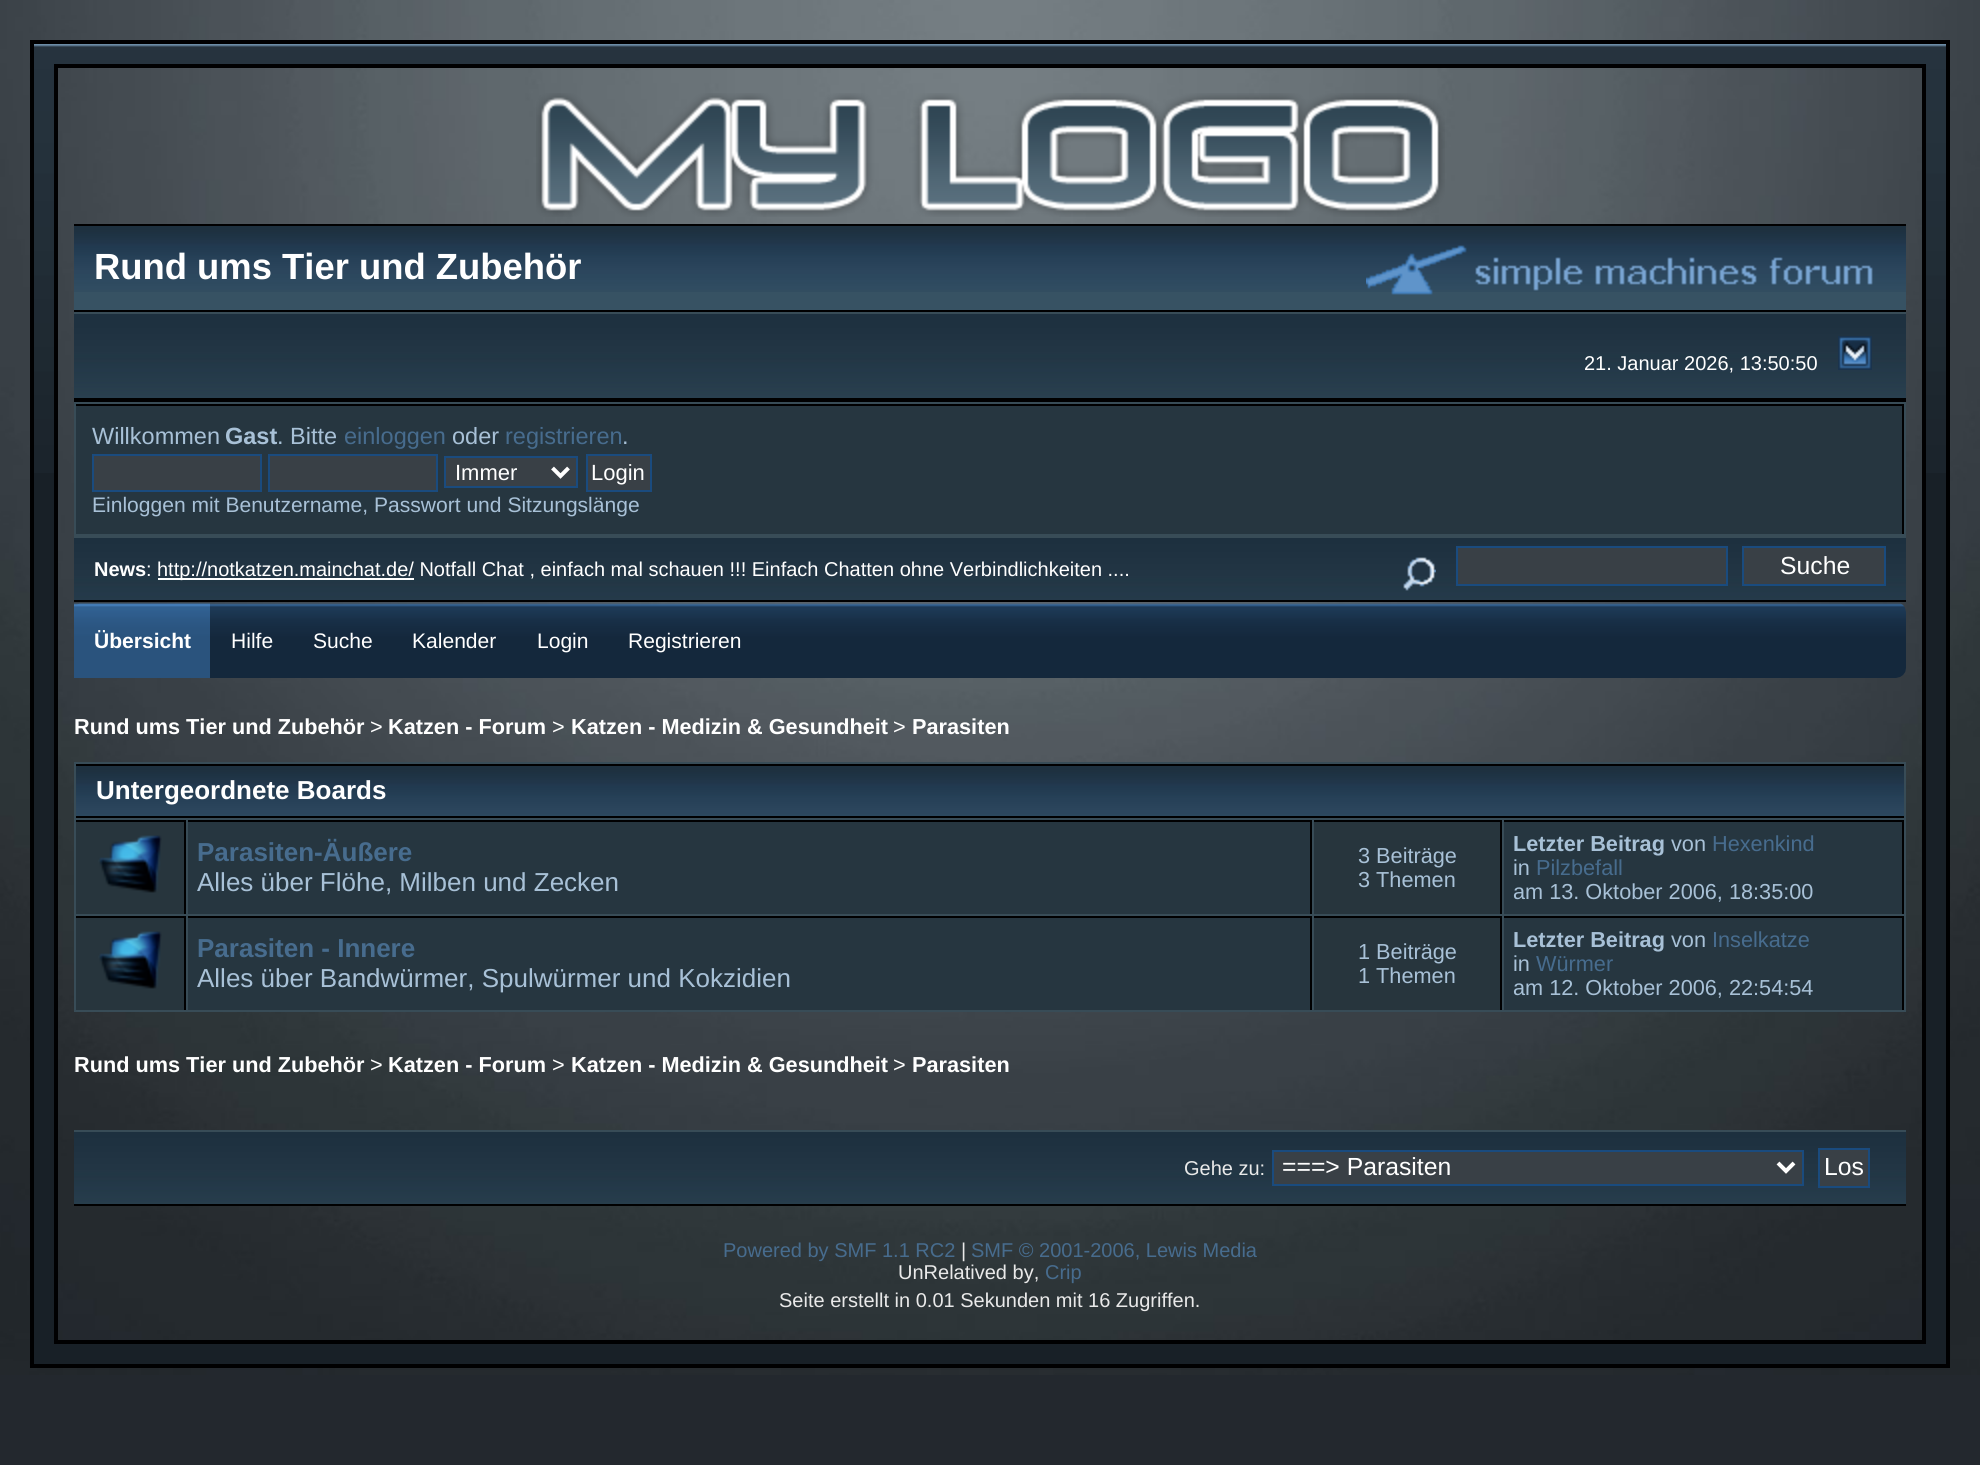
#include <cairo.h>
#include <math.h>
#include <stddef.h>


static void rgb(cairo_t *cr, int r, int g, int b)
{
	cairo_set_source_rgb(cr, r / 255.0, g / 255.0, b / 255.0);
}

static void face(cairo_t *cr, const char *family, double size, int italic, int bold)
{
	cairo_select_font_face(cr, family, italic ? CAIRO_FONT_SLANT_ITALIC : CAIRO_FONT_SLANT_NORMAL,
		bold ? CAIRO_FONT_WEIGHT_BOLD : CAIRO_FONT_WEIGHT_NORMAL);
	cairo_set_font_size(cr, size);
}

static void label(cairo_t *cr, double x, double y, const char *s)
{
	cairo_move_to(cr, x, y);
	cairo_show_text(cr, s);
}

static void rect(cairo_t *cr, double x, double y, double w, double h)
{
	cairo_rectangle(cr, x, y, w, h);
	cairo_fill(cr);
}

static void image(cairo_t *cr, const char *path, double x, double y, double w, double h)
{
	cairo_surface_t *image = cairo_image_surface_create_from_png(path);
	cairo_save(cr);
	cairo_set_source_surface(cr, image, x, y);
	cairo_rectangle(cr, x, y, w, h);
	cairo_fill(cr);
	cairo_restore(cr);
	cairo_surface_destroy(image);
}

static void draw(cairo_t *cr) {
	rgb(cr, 35, 40, 46);
	cairo_paint(cr);
	image(cr, "image0.png", 0, 0, 1980, 1375);
	rgb(cr, 24, 32, 39);
	rect(cr, 34, 473, 1912, 891);
	image(cr, "image1.png", 34, 44, 1912, 429);
	cairo_rectangle(cr, 32, 42, 1916, 1324);
	rgb(cr, 0, 0, 1);
	cairo_set_line_width(cr, 4);
	cairo_stroke(cr);
	image(cr, "image2.png", 58, 68, 1864, 1272);
	cairo_rectangle(cr, 56, 66, 1868, 1276);
	cairo_stroke(cr);
	image(cr, "image3.png", 536, 93, 909, 124);
	rect(cr, 74, 398, 1832, 4);
	rgb(cr, 55, 82, 99);
	rect(cr, 74, 292, 1832, 18);
	image(cr, "image4.png", 74, 226, 884, 66);
	rgb(cr, 0, 0, 1);
	rect(cr, 74, 224, 1832, 2);
	rect(cr, 74, 310, 1832, 2);
	face(cr, "Liberation Sans", 36.4, 0, 1);
	rgb(cr, 255, 255, 255);
	label(cr, 94, 279, "Rund ums Tier und Zubehör");
	image(cr, "image5.png", 958, 226, 948, 66);
	image(cr, "image6.png", 1366, 245, 507, 50);
	image(cr, "image7.png", 74, 314, 1832, 84);
	rgb(cr, 56, 76, 87);
	rect(cr, 74, 312, 1832, 2);
	face(cr, "Liberation Sans", 20, 0, 0);
	rgb(cr, 255, 255, 255);
	label(cr, 1584, 370, "21. Januar 2026, 13:50:50");
	image(cr, "image8.png", 1838, 336, 34, 34);
	rgb(cr, 56, 76, 87);
	rect(cr, 74, 402, 1832, 134);
	rgb(cr, 38, 54, 64);
	rect(cr, 76, 406, 1826, 128);
	rgb(cr, 0, 0, 1);
	rect(cr, 76, 404, 1828, 2);
	rect(cr, 1902, 404, 2, 130);
	face(cr, "Liberation Sans", 23.5, 0, 0);
	rgb(cr, 168, 193, 215);
	label(cr, 92, 444, "Willkommen");
	face(cr, "Liberation Sans", 23.5, 0, 1);
	label(cr, 225, 444, "Gast");
	face(cr, "Liberation Sans", 23.5, 0, 0);
	label(cr, 277, 444, ". Bitte");
	rgb(cr, 71, 108, 142);
	label(cr, 344, 444, "einloggen");
	rgb(cr, 168, 193, 215);
	label(cr, 452, 444, "oder");
	rgb(cr, 71, 108, 142);
	label(cr, 505, 444, "registrieren");
	rgb(cr, 168, 193, 215);
	label(cr, 622, 444, ".");
	rgb(cr, 57, 64, 70);
	cairo_rectangle(cr, 93, 455, 168, 36);
	cairo_fill_preserve(cr);
	rgb(cr, 26, 75, 126);
	cairo_set_line_width(cr, 2);
	cairo_stroke(cr);
	rgb(cr, 57, 64, 70);
	cairo_rectangle(cr, 269, 455, 168, 36);
	cairo_fill_preserve(cr);
	rgb(cr, 26, 75, 126);
	cairo_stroke(cr);
	rgb(cr, 57, 64, 70);
	cairo_rectangle(cr, 445, 457, 132, 30);
	cairo_fill_preserve(cr);
	rgb(cr, 26, 75, 126);
	cairo_stroke(cr);
	cairo_new_path(cr);
	cairo_move_to(cr, 552.5, 468);
	cairo_line_to(cr, 560.5, 476);
	cairo_line_to(cr, 568.5, 468);
	rgb(cr, 255, 255, 255);
	cairo_set_line_width(cr, 4);
	cairo_stroke(cr);
	face(cr, "Liberation Sans", 22, 0, 0);
	label(cr, 455, 480, "Immer");
	rgb(cr, 57, 64, 70);
	cairo_rectangle(cr, 587, 455, 64, 36);
	cairo_fill_preserve(cr);
	rgb(cr, 26, 75, 126);
	cairo_set_line_width(cr, 2);
	cairo_stroke(cr);
	rgb(cr, 255, 255, 255);
	label(cr, 591, 480, "Login");
	face(cr, "Liberation Sans", 21.05, 0, 0);
	rgb(cr, 168, 193, 215);
	label(cr, 92, 512, "Einloggen mit Benutzername, Passwort und Sitzungslänge");
	image(cr, "image9.png", 74, 538, 1294, 62);
	rgb(cr, 56, 76, 87);
	rect(cr, 74, 536, 1832, 2);
	rgb(cr, 0, 0, 1);
	rect(cr, 74, 600, 1832, 2);
	face(cr, "Liberation Sans", 20, 0, 1);
	rgb(cr, 255, 255, 255);
	label(cr, 94, 576, "News");
	face(cr, "Liberation Sans", 20, 0, 0);
	label(cr, 146, 576, ":");
	rect(cr, 158, 578, 256, 2);
	label(cr, 157, 576, "http://notkatzen.mainchat.de/ Notfall Chat , einfach mal schauen !!! Einfach Chatten ohne Verbindlichkeiten ....");
	image(cr, "image10.png", 1368, 538, 538, 62);
	image(cr, "image11.png", 1403, 557, 33, 34);
	rgb(cr, 57, 64, 70);
	cairo_rectangle(cr, 1457, 547, 270, 38);
	cairo_fill_preserve(cr);
	rgb(cr, 26, 75, 126);
	cairo_stroke(cr);
	rgb(cr, 57, 64, 70);
	cairo_rectangle(cr, 1743, 547, 142, 38);
	cairo_fill_preserve(cr);
	rgb(cr, 26, 75, 126);
	cairo_stroke(cr);
	face(cr, "Liberation Sans", 24.75, 0, 0);
	rgb(cr, 255, 255, 255);
	label(cr, 1780, 574, "Suche");
	image(cr, "image12.png", 77, 603, 1829, 75);
	image(cr, "image13.png", 74, 603, 136, 75);
	face(cr, "Liberation Sans", 21.05, 0, 1);
	label(cr, 94, 648, "Übersicht");
	face(cr, "Liberation Sans", 21.05, 0, 0);
	label(cr, 231, 648, "Hilfe");
	label(cr, 313, 648, "Suche");
	label(cr, 412, 648, "Kalender");
	label(cr, 537, 648, "Login");
	label(cr, 628, 648, "Registrieren");
	face(cr, "Liberation Sans", 21.7, 0, 1);
	label(cr, 74, 734, "Rund ums Tier und Zubehör");
	face(cr, "Liberation Sans", 21.7, 0, 0);
	label(cr, 370, 734, ">");
	face(cr, "Liberation Sans", 21.7, 0, 1);
	label(cr, 388, 734, "Katzen - Forum");
	face(cr, "Liberation Sans", 21.7, 0, 0);
	label(cr, 552, 734, ">");
	face(cr, "Liberation Sans", 21.7, 0, 1);
	label(cr, 571, 734, "Katzen - Medizin & Gesundheit");
	face(cr, "Liberation Sans", 21.7, 0, 0);
	label(cr, 893, 734, ">");
	face(cr, "Liberation Sans", 21.7, 0, 1);
	label(cr, 912, 734, "Parasiten");
	rgb(cr, 56, 76, 87);
	rect(cr, 74, 762, 1832, 250);
	image(cr, "image14.png", 76, 766, 1828, 50);
	rgb(cr, 0, 0, 1);
	rect(cr, 76, 764, 1828, 2);
	rect(cr, 76, 816, 1828, 2);
	face(cr, "Liberation Sans", 26, 0, 1);
	rgb(cr, 255, 255, 255);
	label(cr, 96, 799, "Untergeordnete Boards");
	rgb(cr, 39, 53, 61);
	rect(cr, 76, 822, 108, 92);
	rgb(cr, 0, 0, 1);
	rect(cr, 76, 820, 110, 2);
	rect(cr, 184, 820, 2, 94);
	image(cr, "image15.png", 98, 835, 64, 58);
	rgb(cr, 38, 54, 64);
	rect(cr, 188, 822, 1122, 92);
	rgb(cr, 0, 0, 1);
	rect(cr, 188, 820, 1124, 2);
	rect(cr, 1310, 820, 2, 94);
	rgb(cr, 71, 108, 142);
	label(cr, 197, 861, "Parasiten-Äußere");
	face(cr, "Liberation Sans", 26, 0, 0);
	rgb(cr, 168, 193, 215);
	label(cr, 197, 891, "Alles über Flöhe, Milben und Zecken");
	rgb(cr, 39, 53, 61);
	rect(cr, 1314, 822, 186, 92);
	rgb(cr, 0, 0, 1);
	rect(cr, 1314, 820, 188, 2);
	rect(cr, 1500, 820, 2, 94);
	face(cr, "Liberation Sans", 21.7, 0, 0);
	rgb(cr, 168, 193, 215);
	label(cr, 1358, 863, "3 Beiträge");
	label(cr, 1358, 887, "3 Themen");
	rgb(cr, 38, 54, 64);
	rect(cr, 1504, 822, 398, 92);
	rgb(cr, 0, 0, 1);
	rect(cr, 1504, 820, 400, 2);
	rect(cr, 1902, 820, 2, 94);
	face(cr, "Liberation Sans", 21.7, 0, 1);
	rgb(cr, 168, 193, 215);
	label(cr, 1513, 851, "Letzter Beitrag");
	face(cr, "Liberation Sans", 21.7, 0, 0);
	label(cr, 1671, 851, "von");
	rgb(cr, 71, 108, 142);
	label(cr, 1712, 851, "Hexenkind");
	rgb(cr, 168, 193, 215);
	label(cr, 1513, 875, "in");
	rgb(cr, 71, 108, 142);
	label(cr, 1536, 875, "Pilzbefall");
	rgb(cr, 168, 193, 215);
	label(cr, 1513, 899, "am 13. Oktober 2006, 18:35:00");
	rgb(cr, 39, 53, 61);
	rect(cr, 76, 918, 108, 92);
	rgb(cr, 0, 0, 1);
	rect(cr, 76, 916, 110, 2);
	rect(cr, 184, 916, 2, 94);
	image(cr, "image15.png", 98, 931, 64, 58);
	rgb(cr, 38, 54, 64);
	rect(cr, 188, 918, 1122, 92);
	rgb(cr, 0, 0, 1);
	rect(cr, 188, 916, 1124, 2);
	rect(cr, 1310, 916, 2, 94);
	face(cr, "Liberation Sans", 26, 0, 1);
	rgb(cr, 71, 108, 142);
	label(cr, 197, 957, "Parasiten - Innere");
	face(cr, "Liberation Sans", 26, 0, 0);
	rgb(cr, 168, 193, 215);
	label(cr, 197, 987, "Alles über Bandwürmer, Spulwürmer und Kokzidien");
	rgb(cr, 39, 53, 61);
	rect(cr, 1314, 918, 186, 92);
	rgb(cr, 0, 0, 1);
	rect(cr, 1314, 916, 188, 2);
	rect(cr, 1500, 916, 2, 94);
	face(cr, "Liberation Sans", 21.7, 0, 0);
	rgb(cr, 168, 193, 215);
	label(cr, 1358, 959, "1 Beiträge");
	label(cr, 1358, 983, "1 Themen");
	rgb(cr, 38, 54, 64);
	rect(cr, 1504, 918, 398, 92);
	rgb(cr, 0, 0, 1);
	rect(cr, 1504, 916, 400, 2);
	rect(cr, 1902, 916, 2, 94);
	face(cr, "Liberation Sans", 21.7, 0, 1);
	rgb(cr, 168, 193, 215);
	label(cr, 1513, 947, "Letzter Beitrag");
	face(cr, "Liberation Sans", 21.7, 0, 0);
	label(cr, 1671, 947, "von");
	rgb(cr, 71, 108, 142);
	label(cr, 1712, 947, "Inselkatze");
	rgb(cr, 168, 193, 215);
	label(cr, 1513, 971, "in");
	rgb(cr, 71, 108, 142);
	label(cr, 1536, 971, "Würmer");
	rgb(cr, 168, 193, 215);
	label(cr, 1513, 995, "am 12. Oktober 2006, 22:54:54");
	face(cr, "Liberation Sans", 21.7, 0, 1);
	rgb(cr, 255, 255, 255);
	label(cr, 74, 1072, "Rund ums Tier und Zubehör");
	face(cr, "Liberation Sans", 21.7, 0, 0);
	label(cr, 370, 1072, ">");
	face(cr, "Liberation Sans", 21.7, 0, 1);
	label(cr, 388, 1072, "Katzen - Forum");
	face(cr, "Liberation Sans", 21.7, 0, 0);
	label(cr, 552, 1072, ">");
	face(cr, "Liberation Sans", 21.7, 0, 1);
	label(cr, 571, 1072, "Katzen - Medizin & Gesundheit");
	face(cr, "Liberation Sans", 21.7, 0, 0);
	label(cr, 893, 1072, ">");
	face(cr, "Liberation Sans", 21.7, 0, 1);
	label(cr, 912, 1072, "Parasiten");
	image(cr, "image16.png", 74, 1132, 1832, 72);
	rgb(cr, 56, 76, 87);
	rect(cr, 74, 1130, 1832, 2);
	rgb(cr, 0, 0, 1);
	rect(cr, 74, 1204, 1832, 2);
	face(cr, "Liberation Sans", 20, 0, 0);
	rgb(cr, 233, 233, 233);
	label(cr, 1184, 1175, "Gehe zu:");
	rgb(cr, 57, 64, 70);
	cairo_rectangle(cr, 1273, 1151, 530, 34);
	cairo_fill_preserve(cr);
	rgb(cr, 26, 75, 126);
	cairo_stroke(cr);
	cairo_new_path(cr);
	cairo_move_to(cr, 1778, 1163);
	cairo_line_to(cr, 1786, 1171);
	cairo_line_to(cr, 1794, 1163);
	rgb(cr, 255, 255, 255);
	cairo_set_line_width(cr, 4);
	cairo_stroke(cr);
	face(cr, "Liberation Sans", 24.75, 0, 0);
	label(cr, 1282, 1175, "===> Parasiten");
	rgb(cr, 57, 64, 70);
	cairo_rectangle(cr, 1819, 1149, 50, 38);
	cairo_fill_preserve(cr);
	rgb(cr, 26, 75, 126);
	cairo_set_line_width(cr, 2);
	cairo_stroke(cr);
	rgb(cr, 255, 255, 255);
	label(cr, 1824, 1175, "Los");
	face(cr, "Liberation Sans", 20, 0, 0);
	rgb(cr, 71, 108, 142);
	label(cr, 723, 1257, "Powered by SMF 1.1 RC2");
	rgb(cr, 233, 233, 233);
	label(cr, 961, 1257, "|");
	rgb(cr, 71, 108, 142);
	label(cr, 971, 1257, "SMF © 2001-2006, Lewis Media");
	rgb(cr, 233, 233, 233);
	label(cr, 898, 1279, "UnRelatived by,");
	rgb(cr, 71, 108, 142);
	label(cr, 1045, 1279, "Crip");
	rgb(cr, 233, 233, 233);
	label(cr, 779, 1307, "Seite erstellt in 0.01 Sekunden mit 16 Zugriffen.");
}

int main(void) {
	cairo_surface_t *surface = cairo_image_surface_create(CAIRO_FORMAT_RGB24, 1980, 1465);
	cairo_t *cr = cairo_create(surface);
	cairo_font_options_t *options = cairo_font_options_create();
	cairo_font_options_set_hint_metrics(options, CAIRO_HINT_METRICS_OFF);
	cairo_font_options_set_hint_style(options, CAIRO_HINT_STYLE_NONE);
	cairo_set_font_options(cr, options);
	cairo_set_miter_limit(cr, 4);
	draw(cr);
	cairo_surface_write_to_png(surface, "render.png");
	cairo_font_options_destroy(options);
	cairo_destroy(cr);
	cairo_surface_destroy(surface);
	return 0;
}
